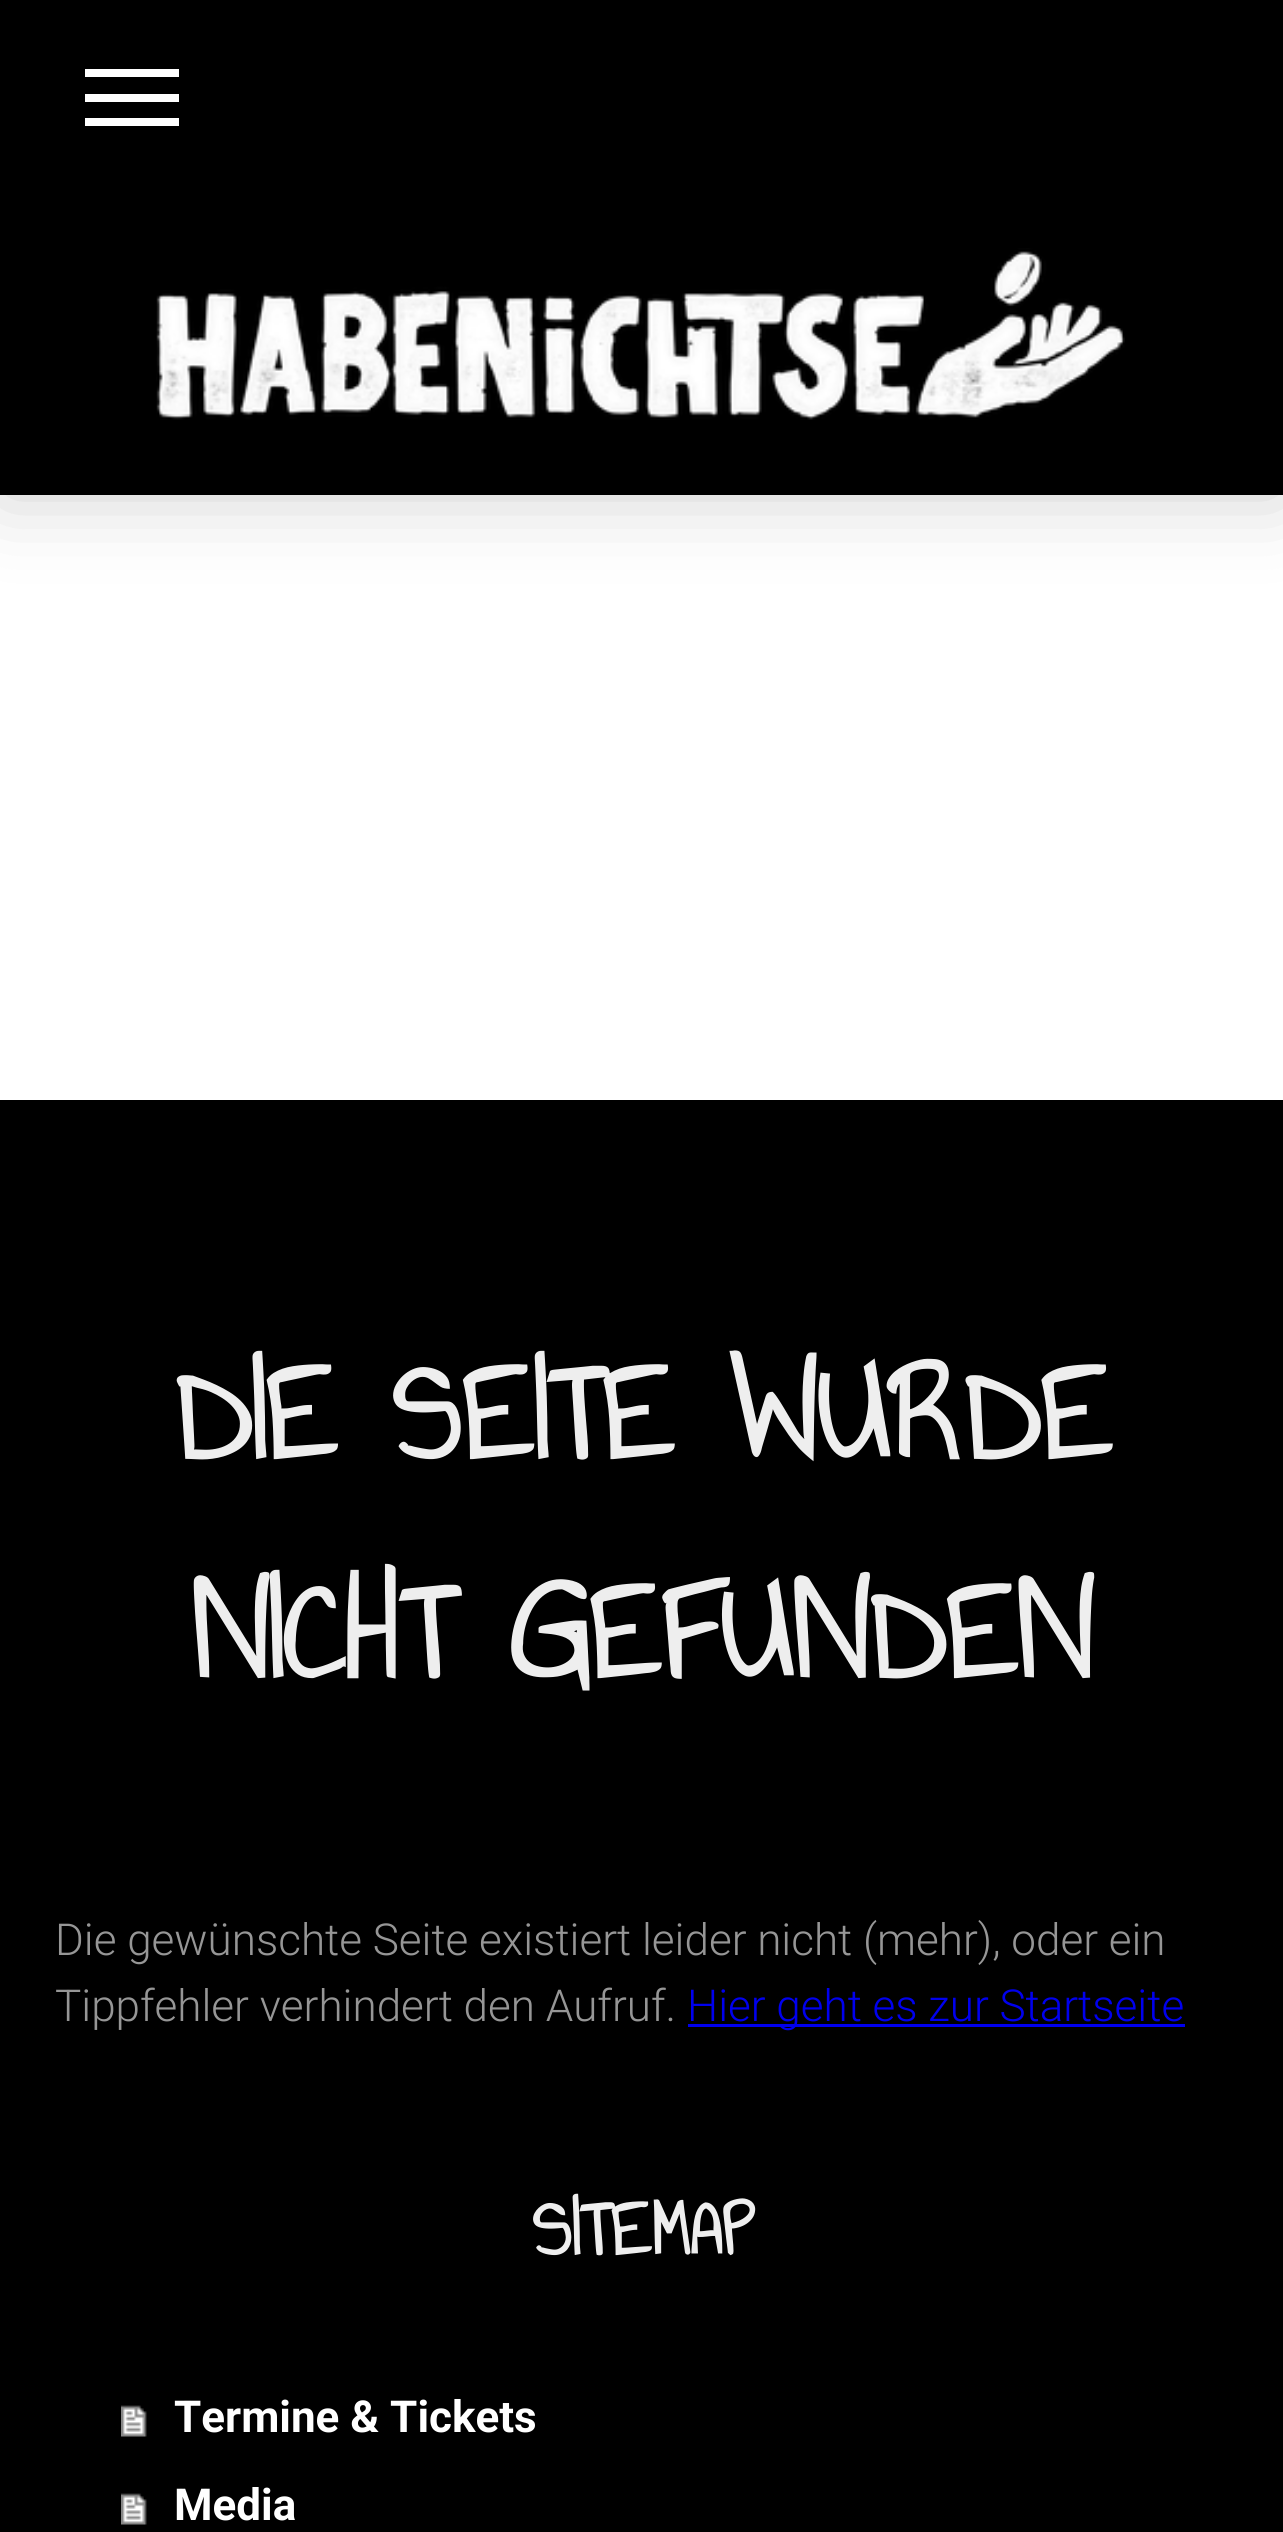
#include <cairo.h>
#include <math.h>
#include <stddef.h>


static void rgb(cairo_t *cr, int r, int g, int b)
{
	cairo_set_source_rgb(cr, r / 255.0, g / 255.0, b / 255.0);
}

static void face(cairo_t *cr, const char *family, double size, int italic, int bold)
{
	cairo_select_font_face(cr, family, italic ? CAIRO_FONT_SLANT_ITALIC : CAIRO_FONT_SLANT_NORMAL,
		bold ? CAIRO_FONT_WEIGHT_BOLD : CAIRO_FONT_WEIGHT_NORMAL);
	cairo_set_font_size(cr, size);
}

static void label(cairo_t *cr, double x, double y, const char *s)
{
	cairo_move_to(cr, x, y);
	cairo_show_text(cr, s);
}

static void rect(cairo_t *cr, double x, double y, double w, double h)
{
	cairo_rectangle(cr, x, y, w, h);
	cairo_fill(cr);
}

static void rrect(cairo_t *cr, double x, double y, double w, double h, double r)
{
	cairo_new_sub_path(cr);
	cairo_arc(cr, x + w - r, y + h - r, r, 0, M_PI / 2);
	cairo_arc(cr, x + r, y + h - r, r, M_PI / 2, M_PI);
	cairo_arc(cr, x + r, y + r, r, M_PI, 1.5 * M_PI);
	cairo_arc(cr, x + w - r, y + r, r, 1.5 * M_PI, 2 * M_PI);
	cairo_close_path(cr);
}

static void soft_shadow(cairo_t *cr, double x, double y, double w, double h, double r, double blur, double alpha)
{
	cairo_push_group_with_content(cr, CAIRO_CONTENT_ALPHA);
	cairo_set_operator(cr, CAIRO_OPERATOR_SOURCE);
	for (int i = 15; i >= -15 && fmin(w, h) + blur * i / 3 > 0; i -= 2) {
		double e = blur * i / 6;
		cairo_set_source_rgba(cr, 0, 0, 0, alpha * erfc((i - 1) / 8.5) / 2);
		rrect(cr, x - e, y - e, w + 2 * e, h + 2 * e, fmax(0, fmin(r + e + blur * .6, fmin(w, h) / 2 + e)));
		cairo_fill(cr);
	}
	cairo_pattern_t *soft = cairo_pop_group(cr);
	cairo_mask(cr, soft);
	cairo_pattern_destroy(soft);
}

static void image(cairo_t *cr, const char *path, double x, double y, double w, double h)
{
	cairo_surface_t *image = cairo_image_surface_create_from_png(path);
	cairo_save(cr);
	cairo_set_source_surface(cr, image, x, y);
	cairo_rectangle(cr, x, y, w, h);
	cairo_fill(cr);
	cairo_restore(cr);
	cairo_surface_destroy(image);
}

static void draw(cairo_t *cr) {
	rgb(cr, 255, 255, 255);
	cairo_paint(cr);
	rgb(cr, 0, 0, 0);
	soft_shadow(cr, 0, 206, 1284, 289, 0, 41, 0.2);
	rgb(cr, 0, 0, 0);
	rect(cr, 0, 0, 1283, 495);
	image(cr, "image0.png", 156, 248, 969, 172);
	rgb(cr, 255, 255, 255);
	rect(cr, 85, 94, 94, 8);
	rect(cr, 85, 69, 94, 8);
	rect(cr, 85, 118, 94, 8);
	rgb(cr, 0, 0, 0);
	rect(cr, 0, 1100, 1283, 1432);
	face(cr, "Annie Use Your Telescope", 145.75, 0, 1);
	rgb(cr, 238, 238, 238);
	label(cr, 174, 1459, "DIE SEITE WURDE");
	label(cr, 192, 1678, "NICHT GEFUNDEN");
	face(cr, "Roboto Light", 44, 0, 0);
	rgb(cr, 150, 150, 150);
	label(cr, 55, 1955, "Die gewünschte Seite existiert leider nicht (mehr), oder ein");
	label(cr, 55, 2021, "Tippfehler verhindert den Aufruf.");
	rgb(cr, 0, 0, 238);
	rect(cr, 688, 2024, 497, 3);
	label(cr, 687, 2021, "Hier geht es zur Startseite");
	face(cr, "Annie Use Your Telescope", 82.5, 0, 1);
	rgb(cr, 238, 238, 238);
	label(cr, 532, 2255, "SITEMAP");
	image(cr, "image1.png", 121, 2405, 26, 32);
	face(cr, "Roboto", 44, 0, 1);
	rgb(cr, 255, 255, 255);
	label(cr, 174, 2432, "Termine & Tickets");
	image(cr, "image1.png", 121, 2493, 26, 32);
	label(cr, 174, 2520, "Media");
}

int main(void) {
	cairo_surface_t *surface = cairo_image_surface_create(CAIRO_FORMAT_RGB24, 1283, 2532);
	cairo_t *cr = cairo_create(surface);
	cairo_font_options_t *options = cairo_font_options_create();
	cairo_font_options_set_hint_metrics(options, CAIRO_HINT_METRICS_OFF);
	cairo_font_options_set_hint_style(options, CAIRO_HINT_STYLE_NONE);
	cairo_set_font_options(cr, options);
	cairo_set_miter_limit(cr, 4);
	draw(cr);
	cairo_surface_write_to_png(surface, "render.png");
	cairo_font_options_destroy(options);
	cairo_destroy(cr);
	cairo_surface_destroy(surface);
	return 0;
}
